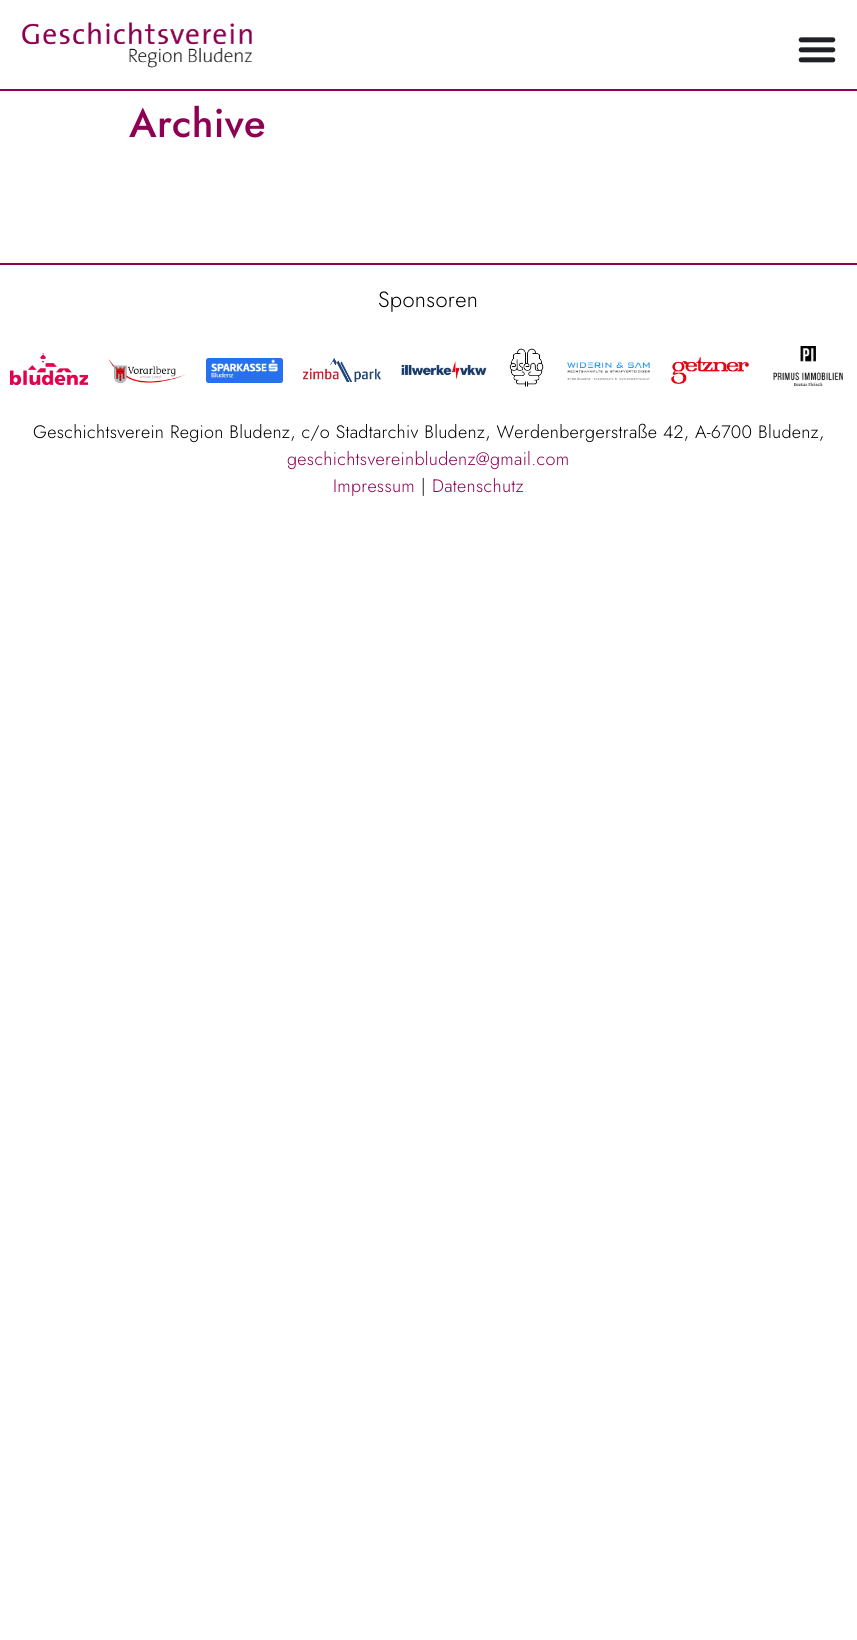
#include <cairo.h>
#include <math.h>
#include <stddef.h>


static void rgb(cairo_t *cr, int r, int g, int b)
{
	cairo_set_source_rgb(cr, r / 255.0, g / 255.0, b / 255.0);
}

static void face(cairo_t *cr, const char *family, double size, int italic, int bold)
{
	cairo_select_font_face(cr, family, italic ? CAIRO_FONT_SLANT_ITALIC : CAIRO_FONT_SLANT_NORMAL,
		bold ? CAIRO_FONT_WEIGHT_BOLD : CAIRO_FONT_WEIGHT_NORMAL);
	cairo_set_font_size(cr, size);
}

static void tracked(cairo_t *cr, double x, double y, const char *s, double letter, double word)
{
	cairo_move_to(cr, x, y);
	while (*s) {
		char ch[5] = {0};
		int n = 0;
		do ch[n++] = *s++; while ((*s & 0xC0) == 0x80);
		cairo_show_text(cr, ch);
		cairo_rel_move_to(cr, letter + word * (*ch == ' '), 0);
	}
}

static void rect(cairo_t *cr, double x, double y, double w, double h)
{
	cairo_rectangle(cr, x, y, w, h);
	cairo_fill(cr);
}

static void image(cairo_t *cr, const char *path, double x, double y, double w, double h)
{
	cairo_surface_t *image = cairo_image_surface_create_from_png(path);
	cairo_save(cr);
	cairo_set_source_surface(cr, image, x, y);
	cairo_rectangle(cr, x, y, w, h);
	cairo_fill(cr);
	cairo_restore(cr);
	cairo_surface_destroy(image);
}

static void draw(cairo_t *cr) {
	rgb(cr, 255, 255, 255);
	cairo_paint(cr);
	rgb(cr, 141, 0, 83);
	rect(cr, 0, 89, 857, 2);
	image(cr, "image0.png", 22, 22, 231, 46);
	image(cr, "image1.png", 798, 37, 38, 26);
	face(cr, "Jost Medium", 40, 0, 0);
	tracked(cr, 129, 137, "Archive", 0.3, 0);
	rect(cr, 0, 263, 857, 2);
	face(cr, "Jost Light", 22, 0, 0);
	rgb(cr, 0, 0, 0);
	tracked(cr, 378, 307, "Sponsoren", 0.3, 0);
	image(cr, "image2.png", 10, 353, 78, 32);
	image(cr, "image3.png", 108, 358, 78, 25);
	image(cr, "image4.png", 206, 358, 77, 25);
	image(cr, "image5.png", 303, 358, 78, 24);
	image(cr, "image6.png", 401, 360, 86, 20);
	image(cr, "image7.png", 509, 348, 35, 39);
	image(cr, "image8.png", 567, 362, 83, 18);
	image(cr, "image9.png", 671, 357, 78, 27);
	image(cr, "image10.png", 773, 346, 70, 40);
	face(cr, "Jost Light", 18, 0, 0);
	tracked(cr, 33, 438, "Geschichtsverein Region Bludenz, c/o Stadtarchiv Bludenz, Werdenbergerstraße 42, A-6700 Bludenz,", 0.3, 0);
	rgb(cr, 141, 0, 83);
	tracked(cr, 287, 465, "geschichtsvereinbludenz@gmail.com", 0.3, 0);
	tracked(cr, 333, 492, "Impressum", 0.3, 0);
	rgb(cr, 0, 0, 0);
	tracked(cr, 421, 492, "|", 0.3, 0);
	rgb(cr, 141, 0, 83);
	tracked(cr, 432, 492, "Datenschutz", 0.3, 0);
}

int main(void) {
	cairo_surface_t *surface = cairo_image_surface_create(CAIRO_FORMAT_RGB24, 857, 1640);
	cairo_t *cr = cairo_create(surface);
	cairo_font_options_t *options = cairo_font_options_create();
	cairo_font_options_set_hint_metrics(options, CAIRO_HINT_METRICS_OFF);
	cairo_font_options_set_hint_style(options, CAIRO_HINT_STYLE_NONE);
	cairo_set_font_options(cr, options);
	cairo_set_miter_limit(cr, 4);
	draw(cr);
	cairo_surface_write_to_png(surface, "render.png");
	cairo_font_options_destroy(options);
	cairo_destroy(cr);
	cairo_surface_destroy(surface);
	return 0;
}
